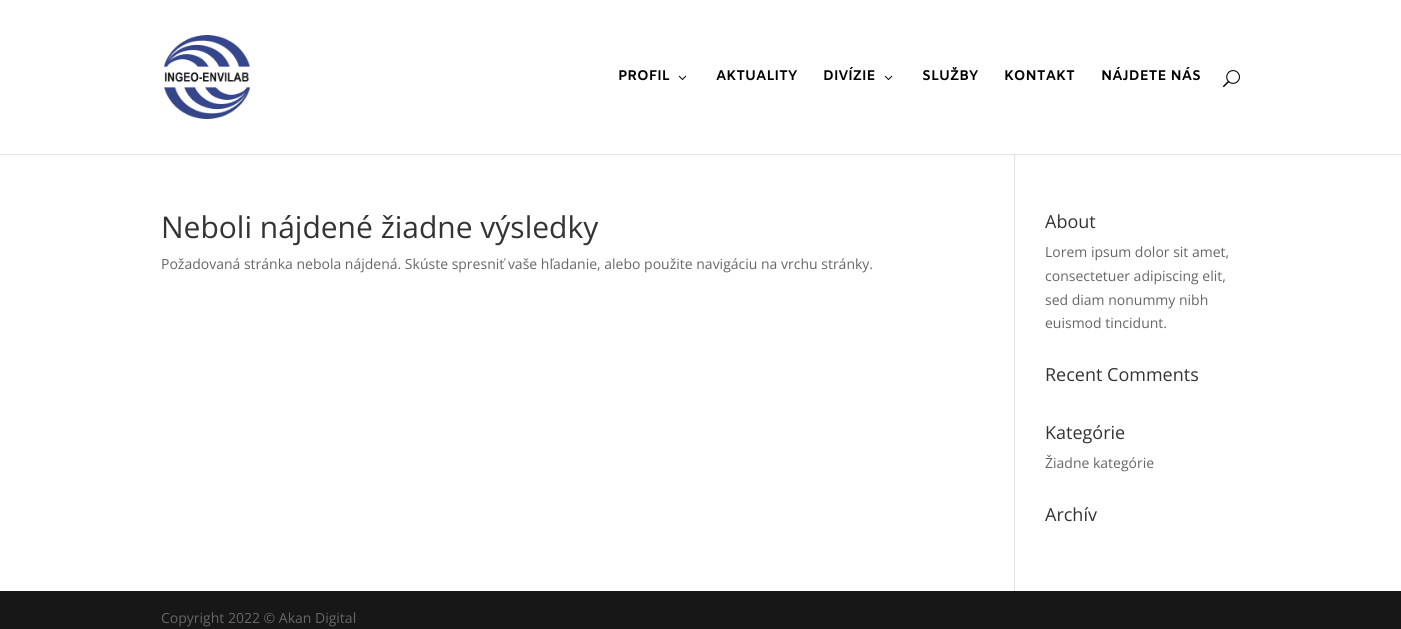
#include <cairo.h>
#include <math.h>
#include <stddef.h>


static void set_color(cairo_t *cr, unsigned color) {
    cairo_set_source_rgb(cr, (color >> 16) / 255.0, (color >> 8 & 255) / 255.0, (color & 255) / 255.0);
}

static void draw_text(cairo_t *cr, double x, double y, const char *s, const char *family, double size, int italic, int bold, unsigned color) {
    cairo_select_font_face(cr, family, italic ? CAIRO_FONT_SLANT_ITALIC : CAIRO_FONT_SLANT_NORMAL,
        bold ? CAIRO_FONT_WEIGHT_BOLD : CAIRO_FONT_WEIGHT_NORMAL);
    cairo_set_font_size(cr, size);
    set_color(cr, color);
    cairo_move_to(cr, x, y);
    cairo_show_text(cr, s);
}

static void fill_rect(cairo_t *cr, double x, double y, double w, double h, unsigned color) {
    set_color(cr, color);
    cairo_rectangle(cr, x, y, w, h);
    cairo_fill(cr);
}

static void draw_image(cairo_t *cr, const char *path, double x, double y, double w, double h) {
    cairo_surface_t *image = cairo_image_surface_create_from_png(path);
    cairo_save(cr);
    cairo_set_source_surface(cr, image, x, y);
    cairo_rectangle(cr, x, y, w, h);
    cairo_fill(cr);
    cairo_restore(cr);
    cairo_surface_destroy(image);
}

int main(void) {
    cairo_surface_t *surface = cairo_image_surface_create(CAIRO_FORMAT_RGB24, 1401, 629);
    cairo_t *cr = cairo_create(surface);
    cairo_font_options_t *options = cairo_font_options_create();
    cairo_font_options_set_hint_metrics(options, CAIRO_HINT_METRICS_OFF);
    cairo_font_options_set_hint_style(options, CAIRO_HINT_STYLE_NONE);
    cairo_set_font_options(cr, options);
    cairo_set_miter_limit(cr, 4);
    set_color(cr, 0xFFFFFF);
    cairo_paint(cr);
    fill_rect(cr, 0, 154, 1401, 1, 0xE6E6E6);
    draw_image(cr, "assets/img1.png", 164, 35, 86, 84);
    draw_text(cr, 618, 80, "PROFIL", "Amiko", 14, 0, 1, 0x000000);
    draw_image(cr, "assets/img2.png", 678, 75, 9, 5);
    draw_text(cr, 716, 80, "AKTUALITY", "Amiko", 14, 0, 1, 0x000000);
    draw_text(cr, 823, 80, "DIVÍZIE", "Amiko", 14, 0, 1, 0x000000);
    draw_image(cr, "assets/img2.png", 884, 75, 9, 5);
    draw_text(cr, 922, 80, "SLUŽBY", "Amiko", 14, 0, 1, 0x000000);
    draw_text(cr, 1004, 80, "KONTAKT", "Amiko", 14, 0, 1, 0x000000);
    draw_text(cr, 1101, 80, "NÁJDETE NÁS", "Amiko", 14, 0, 1, 0x000000);
    draw_image(cr, "assets/img3.png", 1223, 70, 17, 18);
    fill_rect(cr, 1014, 154, 1, 437, 0xE2E2E2);
    fill_rect(cr, 1014, 154, 1, 1, 0xCBCBCB);
    draw_text(cr, 161, 238, "Neboli nájdené žiadne výsledky", "Open Sans", 30, 0, 0, 0x333333);
    draw_text(cr, 161, 269, "Požadovaná stránka nebola nájdená. Skúste spresniť vaše hľadanie, alebo použite navigáciu na vrchu stránky.", "Open Sans", 14, 0, 0, 0x666666);
    draw_text(cr, 1045, 228, "About", "Open Sans", 18, 0, 0, 0x333333);
    draw_text(cr, 1045, 257, "Lorem ipsum dolor sit amet,", "Open Sans", 14, 0, 0, 0x666666);
    draw_text(cr, 1045, 281, "consectetuer adipiscing elit,", "Open Sans", 14, 0, 0, 0x666666);
    draw_text(cr, 1045, 305, "sed diam nonummy nibh", "Open Sans", 14, 0, 0, 0x666666);
    draw_text(cr, 1045, 328, "euismod tincidunt.", "Open Sans", 14, 0, 0, 0x666666);
    draw_text(cr, 1045, 381, "Recent Comments", "Open Sans", 18, 0, 0, 0x333333);
    draw_text(cr, 1045, 439, "Kategórie", "Open Sans", 18, 0, 0, 0x333333);
    draw_text(cr, 1045, 468, "Žiadne kategórie", "Open Sans", 14, 0, 0, 0x666666);
    draw_text(cr, 1045, 521, "Archív", "Open Sans", 18, 0, 0, 0x333333);
    fill_rect(cr, 0, 591, 1401, 38, 0x171717);
    draw_text(cr, 161, 623, "Copyright 2022 © Akan Digital", "Open Sans", 14, 0, 0, 0x666666);
    cairo_surface_write_to_png(surface, "output.png");
    cairo_font_options_destroy(options);
    cairo_destroy(cr);
    cairo_surface_destroy(surface);
    return 0;
}
